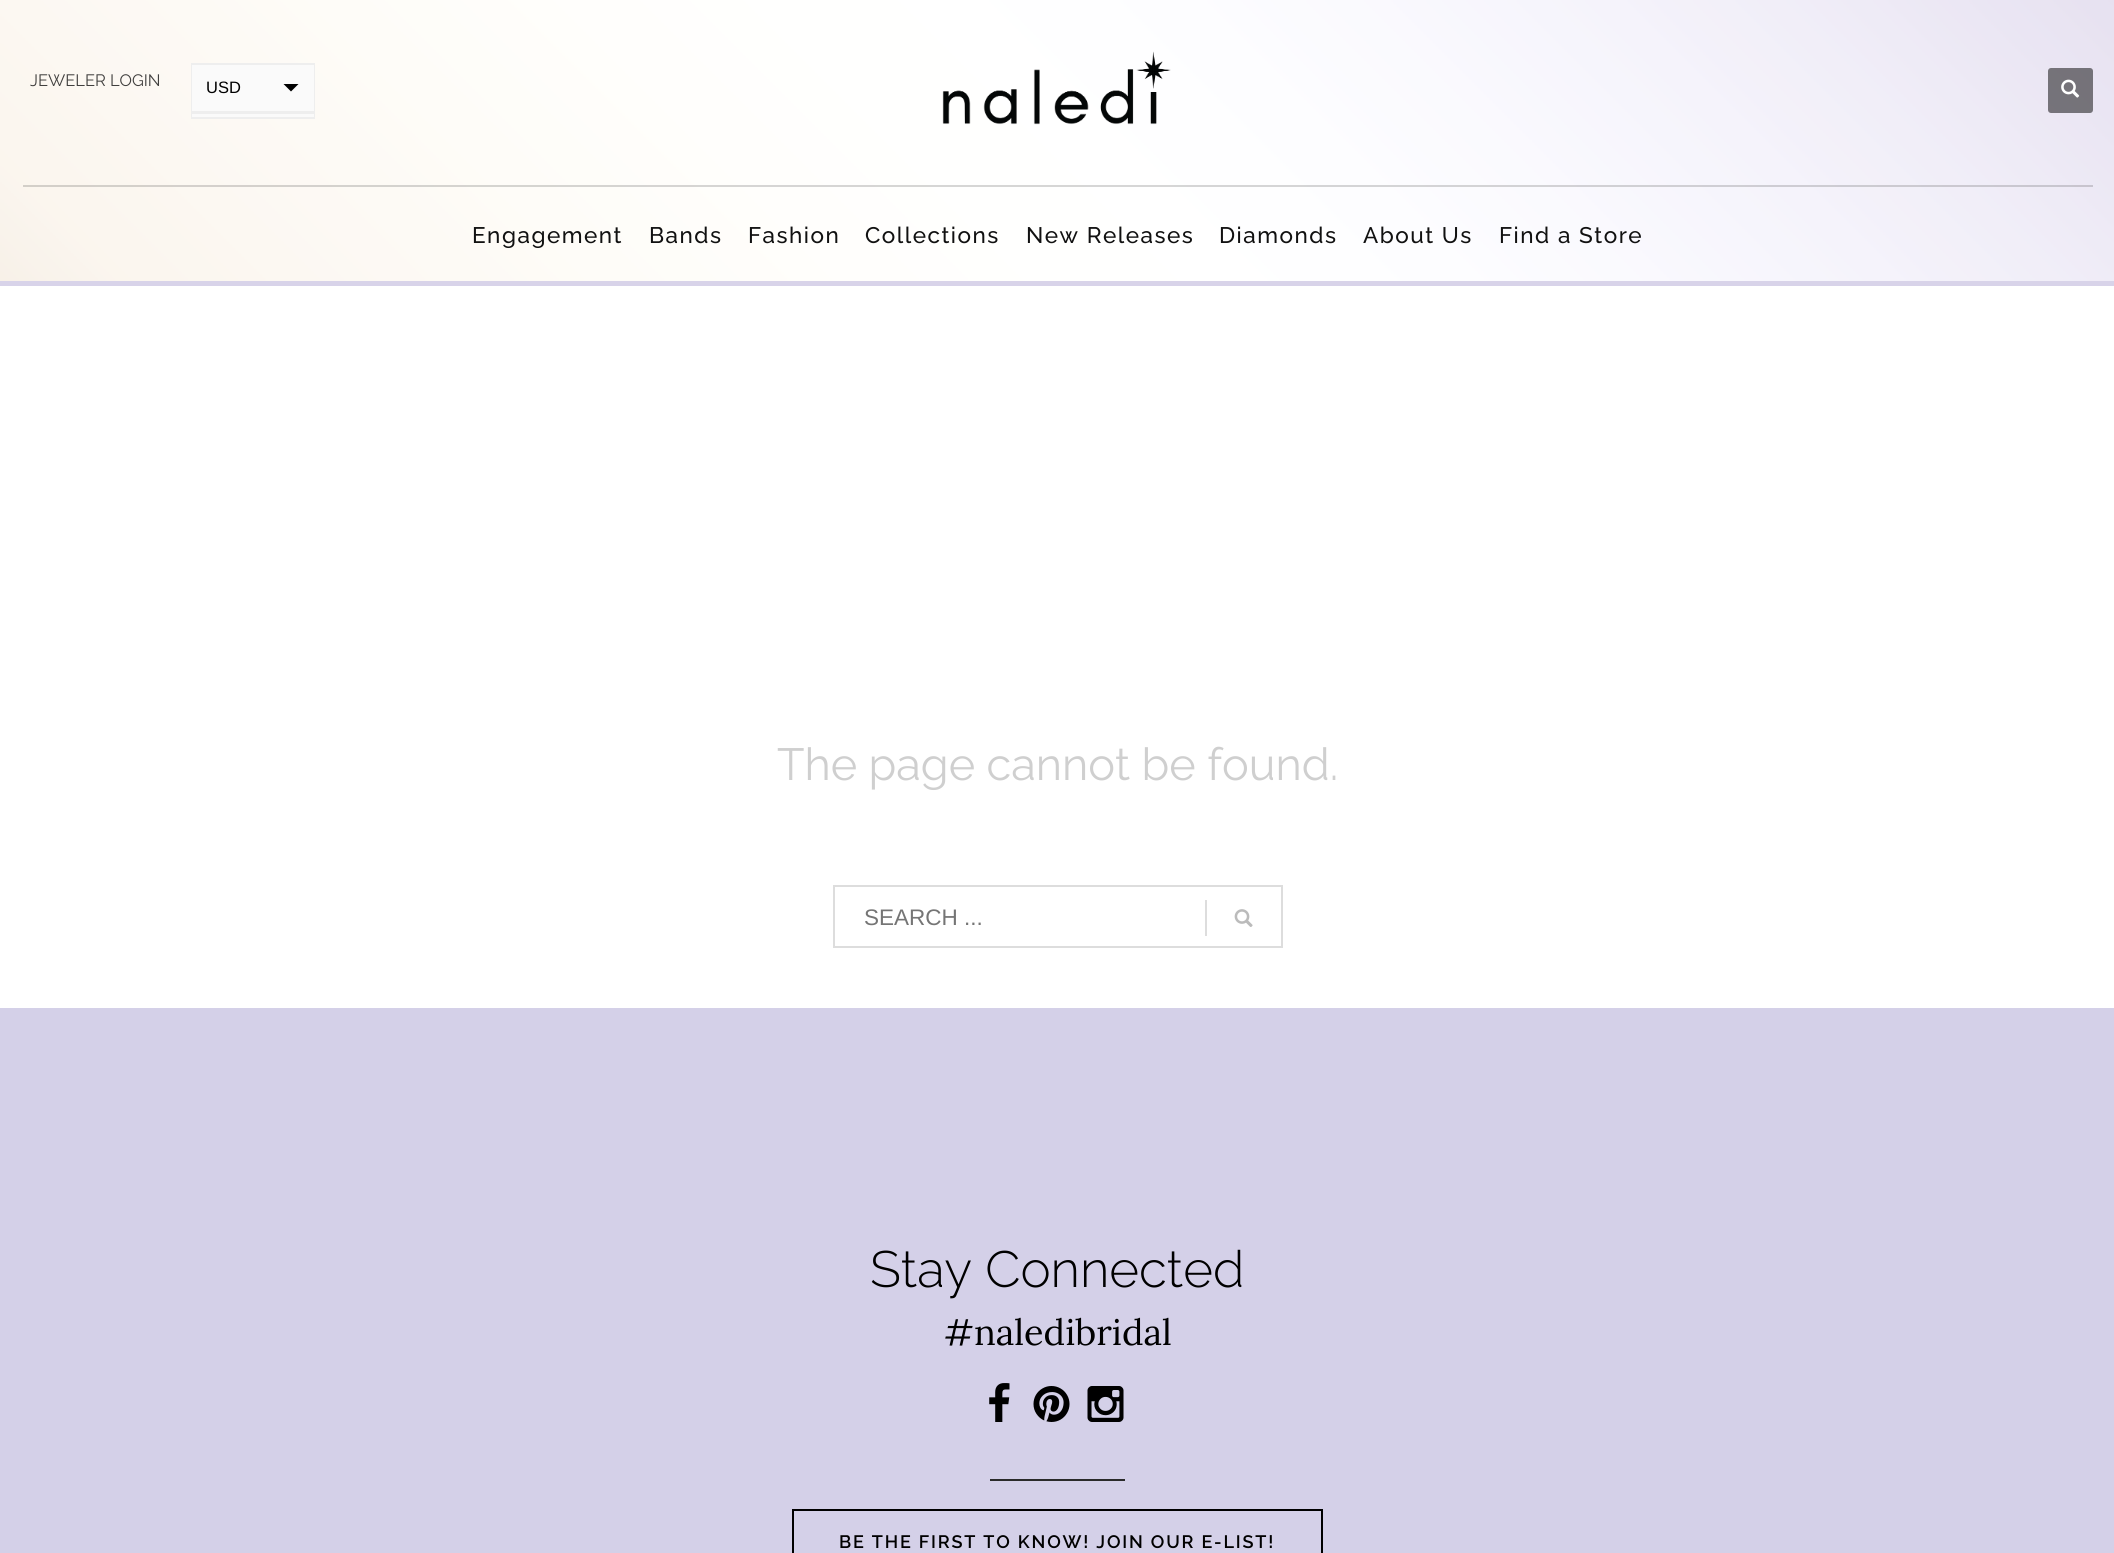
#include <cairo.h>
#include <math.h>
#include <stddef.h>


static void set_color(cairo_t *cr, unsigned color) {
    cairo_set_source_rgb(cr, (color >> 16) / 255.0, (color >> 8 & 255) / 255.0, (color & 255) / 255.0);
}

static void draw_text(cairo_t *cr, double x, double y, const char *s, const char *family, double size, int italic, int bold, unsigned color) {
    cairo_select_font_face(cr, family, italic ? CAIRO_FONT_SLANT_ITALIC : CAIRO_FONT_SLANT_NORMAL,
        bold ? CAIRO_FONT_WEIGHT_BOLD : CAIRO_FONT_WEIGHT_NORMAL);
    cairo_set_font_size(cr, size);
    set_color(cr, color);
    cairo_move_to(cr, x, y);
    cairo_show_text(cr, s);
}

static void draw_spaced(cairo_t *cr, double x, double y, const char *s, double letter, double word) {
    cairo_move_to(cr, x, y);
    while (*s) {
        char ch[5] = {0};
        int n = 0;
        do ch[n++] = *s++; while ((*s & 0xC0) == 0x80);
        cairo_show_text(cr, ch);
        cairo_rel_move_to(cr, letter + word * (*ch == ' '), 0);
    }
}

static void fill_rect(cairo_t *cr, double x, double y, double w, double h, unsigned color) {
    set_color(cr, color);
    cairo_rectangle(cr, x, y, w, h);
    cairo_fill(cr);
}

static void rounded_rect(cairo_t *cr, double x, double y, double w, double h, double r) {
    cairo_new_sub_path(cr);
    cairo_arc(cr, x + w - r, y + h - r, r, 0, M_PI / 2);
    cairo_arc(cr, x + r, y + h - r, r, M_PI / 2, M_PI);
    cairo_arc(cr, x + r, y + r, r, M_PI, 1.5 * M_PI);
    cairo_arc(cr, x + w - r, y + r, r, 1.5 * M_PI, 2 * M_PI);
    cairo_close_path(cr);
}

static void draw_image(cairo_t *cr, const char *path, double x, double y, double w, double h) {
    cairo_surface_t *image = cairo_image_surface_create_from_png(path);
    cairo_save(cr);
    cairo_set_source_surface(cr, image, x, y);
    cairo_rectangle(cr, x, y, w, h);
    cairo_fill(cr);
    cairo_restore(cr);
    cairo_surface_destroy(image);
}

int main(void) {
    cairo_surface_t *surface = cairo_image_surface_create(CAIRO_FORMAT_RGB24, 2114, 1553);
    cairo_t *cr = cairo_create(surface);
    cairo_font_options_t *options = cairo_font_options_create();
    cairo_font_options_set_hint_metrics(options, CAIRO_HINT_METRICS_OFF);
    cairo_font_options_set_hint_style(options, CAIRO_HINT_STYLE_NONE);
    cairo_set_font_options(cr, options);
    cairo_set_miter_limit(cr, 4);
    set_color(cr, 0xFFFFFF);
    cairo_paint(cr);
    draw_image(cr, "assets/img1.png", 0, 0, 2114, 281);
    fill_rect(cr, 0, 281, 2114, 5, 0xD8D3E9);
    draw_text(cr, 30, 86, "JEWELER LOGIN", "Raleway", 16.5, 0, 0, 0x403F3E);
    fill_rect(cr, 191, 63, 124, 56, 0xEEEEEE);
    fill_rect(cr, 192, 65, 122, 46, 0xFAFAFA);
    draw_text(cr, 206, 93, "USD", "Liberation Sans", 16.5, 0, 0, 0x000000);
    cairo_new_path(cr);
    cairo_move_to(cr, 283.5, 84);
    cairo_line_to(cr, 298.5, 84);
    cairo_line_to(cr, 291, 91.5);
    cairo_close_path(cr);
    cairo_fill(cr);
    fill_rect(cr, 192, 114, 122, 3, 0xFAFAFA);
    draw_image(cr, "assets/img2.png", 942, 51, 229, 74);
    cairo_set_source_rgba(cr, 0, 0, 0, 0.5);
    rounded_rect(cr, 2048, 68, 45, 45, 3);
    cairo_fill(cr);
    draw_image(cr, "assets/img3.png", 2061, 79, 19, 19);
    cairo_set_source_rgba(cr, 0.2, 0.2, 0.2, 0.2);
    cairo_rectangle(cr, 23, 185, 2070, 2);
    cairo_fill(cr);
    cairo_select_font_face(cr, "Raleway Medium", CAIRO_FONT_SLANT_NORMAL, CAIRO_FONT_WEIGHT_NORMAL);
    cairo_set_font_size(cr, 22.5);
    set_color(cr, 0x111111);
    draw_spaced(cr, 472, 243, "Engagement", 1.5, 0);
    draw_spaced(cr, 649, 243, "Bands", 1.5, 0);
    draw_spaced(cr, 748, 243, "Fashion", 1.5, 0);
    draw_spaced(cr, 865, 243, "Collections", 1.5, 0);
    draw_spaced(cr, 1026, 243, "New Releases", 1.5, 0);
    draw_spaced(cr, 1219, 243, "Diamonds", 1.5, 0);
    draw_spaced(cr, 1363, 243, "About Us", 1.5, 0);
    draw_spaced(cr, 1499, 243, "Find a Store", 1.5, 0);
    draw_text(cr, 777, 780, "The page cannot be found.", "Raleway", 45, 0, 0, 0xCFCFCF);
    cairo_rectangle(cr, 834, 886, 448, 61);
    set_color(cr, 0xDDDDDD);
    cairo_stroke(cr);
    draw_text(cr, 864, 925, "SEARCH ...", "Liberation Sans", 22.5, 0, 0, 0x757575);
    fill_rect(cr, 1205, 900, 2, 36, 0xDDDDDD);
    draw_image(cr, "assets/img4.png", 1234, 909, 19, 18);
    fill_rect(cr, 0, 1008, 2114, 545, 0xD4D0E8);
    draw_text(cr, 870, 1287, "Stay Connected", "Raleway Light", 51, 0, 0, 0x000000);
    draw_text(cr, 944, 1345, "#naledibridal", "Lora", 36, 0, 0, 0x000000);
    draw_image(cr, "assets/img5.png", 989, 1383, 21, 39);
    draw_image(cr, "assets/img6.png", 1033, 1386, 37, 36);
    draw_image(cr, "assets/img7.png", 1087, 1386, 37, 36);
    fill_rect(cr, 990, 1479, 135, 2, 0x2A2A2A);
    cairo_rectangle(cr, 793, 1510, 529, 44);
    set_color(cr, 0x000000);
    cairo_stroke(cr);
    cairo_select_font_face(cr, "Raleway SemiBold", CAIRO_FONT_SLANT_NORMAL, CAIRO_FONT_WEIGHT_NORMAL);
    cairo_set_font_size(cr, 18);
    draw_spaced(cr, 839, 1548, "BE THE FIRST TO KNOW! JOIN OUR E-LIST!", 1.8, 0);
    cairo_surface_write_to_png(surface, "output.png");
    cairo_font_options_destroy(options);
    cairo_destroy(cr);
    cairo_surface_destroy(surface);
    return 0;
}
